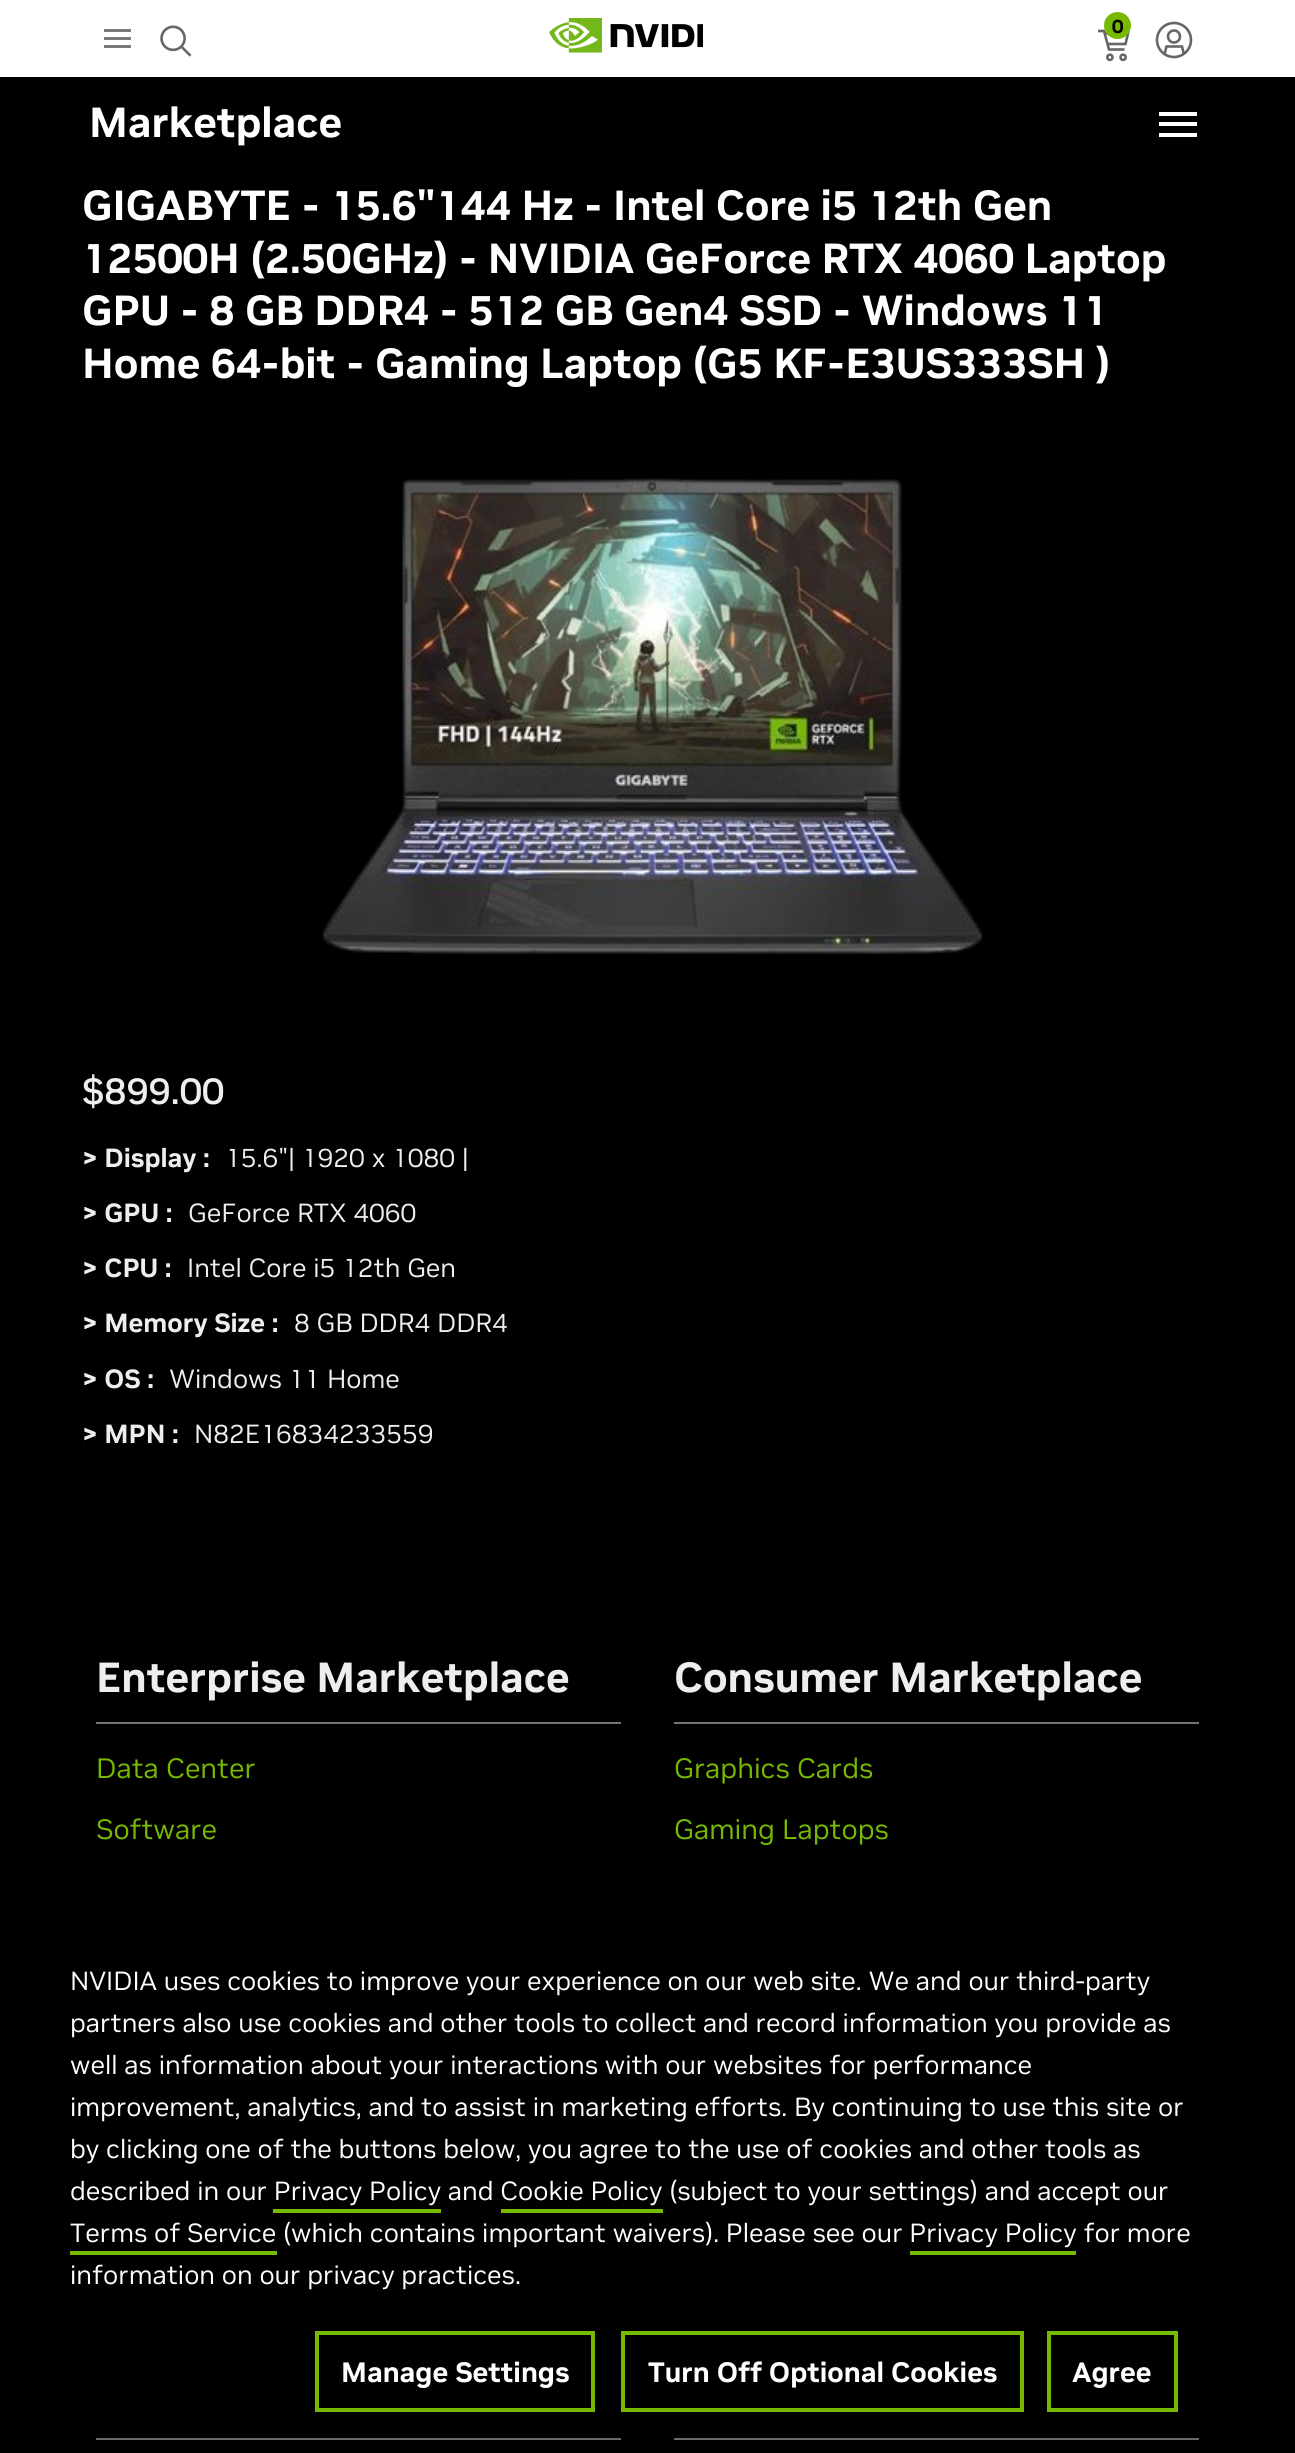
#include <cairo.h>
#include <math.h>
#include <stddef.h>


static void set_color(cairo_t *cr, unsigned color) {
    cairo_set_source_rgb(cr, (color >> 16) / 255.0, (color >> 8 & 255) / 255.0, (color & 255) / 255.0);
}

static void draw_text(cairo_t *cr, double x, double y, const char *s, const char *family, double size, int italic, int bold, unsigned color) {
    cairo_select_font_face(cr, family, italic ? CAIRO_FONT_SLANT_ITALIC : CAIRO_FONT_SLANT_NORMAL,
        bold ? CAIRO_FONT_WEIGHT_BOLD : CAIRO_FONT_WEIGHT_NORMAL);
    cairo_set_font_size(cr, size);
    set_color(cr, color);
    cairo_move_to(cr, x, y);
    cairo_show_text(cr, s);
}

static void fill_rect(cairo_t *cr, double x, double y, double w, double h, unsigned color) {
    set_color(cr, color);
    cairo_rectangle(cr, x, y, w, h);
    cairo_fill(cr);
}

static void rounded_rect(cairo_t *cr, double x, double y, double w, double h, double r) {
    cairo_new_sub_path(cr);
    cairo_arc(cr, x + w - r, y + h - r, r, 0, M_PI / 2);
    cairo_arc(cr, x + r, y + h - r, r, M_PI / 2, M_PI);
    cairo_arc(cr, x + r, y + r, r, M_PI, 1.5 * M_PI);
    cairo_arc(cr, x + w - r, y + r, r, 1.5 * M_PI, 2 * M_PI);
    cairo_close_path(cr);
}

static void draw_shadow(cairo_t *cr, double x, double y, double w, double h, double r, double blur, double alpha) {
    cairo_push_group_with_content(cr, CAIRO_CONTENT_ALPHA);
    cairo_set_operator(cr, CAIRO_OPERATOR_SOURCE);
    for (int i = 15; i >= -15 && fmin(w, h) + blur * i / 3 > 0; i -= 2) {
        double e = blur * i / 6;
        cairo_set_source_rgba(cr, 0, 0, 0, alpha * erfc((i - 1) / 8.5) / 2);
        rounded_rect(cr, x - e, y - e, w + 2 * e, h + 2 * e, fmax(0, fmin(r + e + blur * .6, fmin(w, h) / 2 + e)));
        cairo_fill(cr);
    }
    cairo_pattern_t *soft = cairo_pop_group(cr);
    cairo_mask(cr, soft);
    cairo_pattern_destroy(soft);
}

static void draw_image(cairo_t *cr, const char *path, double x, double y, double w, double h) {
    cairo_surface_t *image = cairo_image_surface_create_from_png(path);
    cairo_save(cr);
    cairo_set_source_surface(cr, image, x, y);
    cairo_rectangle(cr, x, y, w, h);
    cairo_fill(cr);
    cairo_restore(cr);
    cairo_surface_destroy(image);
}

int main(void) {
    cairo_surface_t *surface = cairo_image_surface_create(CAIRO_FORMAT_RGB24, 1295, 2453);
    cairo_t *cr = cairo_create(surface);
    cairo_font_options_t *options = cairo_font_options_create();
    cairo_font_options_set_hint_metrics(options, CAIRO_HINT_METRICS_OFF);
    cairo_font_options_set_hint_style(options, CAIRO_HINT_STYLE_NONE);
    cairo_set_font_options(cr, options);
    cairo_set_miter_limit(cr, 4);
    set_color(cr, 0x000000);
    cairo_paint(cr);
    fill_rect(cr, 0, 0, 1295, 77, 0xFFFFFF);
    fill_rect(cr, 104, 29, 27, 3, 0x7A7A7A);
    fill_rect(cr, 104, 37, 27, 3, 0x7A7A7A);
    fill_rect(cr, 104, 45, 27, 3, 0x7A7A7A);
    draw_image(cr, "assets/img1.png", 160, 25, 32, 32);
    draw_image(cr, "assets/img2.png", 549, 18, 154, 35);
    cairo_new_path(cr);
    cairo_move_to(cr, 1098, 31);
    cairo_line_to(cr, 1104, 31);
    cairo_line_to(cr, 1109, 49.5);
    cairo_line_to(cr, 1124.5, 49.5);
    set_color(cr, 0x666666);
    cairo_set_line_width(cr, 2.6);
    cairo_stroke(cr);
    cairo_new_path(cr);
    cairo_move_to(cr, 1105, 33.5);
    cairo_line_to(cr, 1128, 33.5);
    cairo_line_to(cr, 1125.5, 44);
    cairo_line_to(cr, 1107.5, 44);
    cairo_stroke(cr);
    set_color(cr, 0x76B900);
    cairo_arc(cr, 1117.5, 25.5, 13.5, 0, 2 * M_PI);
    cairo_fill(cr);
    draw_text(cr, 1112, 33, "0", "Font", 19, 0, 1, 0x000000);
    cairo_new_path(cr);
    cairo_arc(cr, 1109.9, 57.3, 2.6, 0, 2 * M_PI);
    set_color(cr, 0x666666);
    cairo_stroke(cr);
    cairo_arc(cr, 1123.1, 57.3, 2.6, 0, 2 * M_PI);
    cairo_stroke(cr);
    cairo_arc(cr, 1174, 40, 17, 0, 2 * M_PI);
    cairo_stroke(cr);
    cairo_arc(cr, 1174, 36.5, 6, 0, 2 * M_PI);
    cairo_stroke(cr);
    cairo_new_path(cr);
    cairo_move_to(cr, 1184, 54.5);
    cairo_line_to(cr, 1182, 46.5);
    cairo_line_to(cr, 1166.5, 46.5);
    cairo_line_to(cr, 1164.5, 54.5);
    cairo_stroke(cr);
    draw_text(cr, 89, 137, "Marketplace", "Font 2", 42, 0, 1, 0xFFFFFF);
    fill_rect(cr, 1159, 112, 38, 4, 0xFFFFFF);
    fill_rect(cr, 1159, 122, 38, 4, 0xFFFFFF);
    fill_rect(cr, 1159, 133, 38, 4, 0xFFFFFF);
    draw_text(cr, 82, 220, "GIGABYTE - 15.6\"144 Hz - Intel Core i5 12th Gen", "Font 2", 42, 0, 1, 0xFFFFFF);
    draw_text(cr, 82, 273, "12500H (2.50GHz) - NVIDIA GeForce RTX 4060 Laptop", "Font 2", 42, 0, 1, 0xFFFFFF);
    draw_text(cr, 82, 325, "GPU - 8 GB DDR4 - 512 GB Gen4 SSD - Windows 11", "Font 2", 42, 0, 1, 0xFFFFFF);
    draw_text(cr, 82, 378, "Home 64-bit - Gaming Laptop (G5 KF-E3US333SH )", "Font 2", 42, 0, 1, 0xFFFFFF);
    draw_image(cr, "assets/img3.png", 322, 478, 661, 477);
    draw_text(cr, 82, 1104, "$899.00", "Font Medium", 37, 0, 0, 0xEEEEEE);
    draw_text(cr, 82, 1167, "> Display :", "Font", 26.25, 0, 1, 0xEEEEEE);
    draw_text(cr, 225, 1167, "15.6\"| 1920 x 1080 |", "Font", 26.25, 0, 0, 0xEEEEEE);
    draw_text(cr, 82, 1222, "> GPU :", "Font", 26.25, 0, 1, 0xEEEEEE);
    draw_text(cr, 188, 1222, "GeForce RTX 4060", "Font", 26.25, 0, 0, 0xEEEEEE);
    draw_text(cr, 82, 1277, "> CPU :", "Font", 26.25, 0, 1, 0xEEEEEE);
    draw_text(cr, 187, 1277, "Intel Core i5 12th Gen", "Font", 26.25, 0, 0, 0xEEEEEE);
    draw_text(cr, 82, 1332, "> Memory Size :", "Font", 26.25, 0, 1, 0xEEEEEE);
    draw_text(cr, 294, 1332, "8 GB DDR4 DDR4", "Font", 26.25, 0, 0, 0xEEEEEE);
    draw_text(cr, 82, 1388, "> OS :", "Font", 26.25, 0, 1, 0xEEEEEE);
    draw_text(cr, 169, 1388, "Windows 11 Home", "Font", 26.25, 0, 0, 0xEEEEEE);
    draw_text(cr, 82, 1443, "> MPN :", "Font", 26.25, 0, 1, 0xEEEEEE);
    draw_text(cr, 194, 1443, "N82E16834233559", "Font", 26.25, 0, 0, 0xEEEEEE);
    fill_rect(cr, 96, 1722, 525, 2, 0x747474);
    draw_text(cr, 96, 1692, "Enterprise Marketplace", "Font", 42, 0, 1, 0xEEEEEE);
    draw_text(cr, 96, 1778, "Data Center", "Font", 28, 0, 0, 0x76B900);
    draw_text(cr, 96, 1839, "Software", "Font", 28, 0, 0, 0x76B900);
    fill_rect(cr, 674, 1722, 525, 2, 0x747474);
    draw_text(cr, 674, 1692, "Consumer Marketplace", "Font", 42, 0, 1, 0xEEEEEE);
    draw_text(cr, 674, 1778, "Graphics Cards", "Font", 28, 0, 0, 0x76B900);
    draw_text(cr, 674, 1839, "Gaming Laptops", "Font", 28, 0, 0, 0x76B900);
    fill_rect(cr, 96, 2438, 525, 2, 0x747474);
    fill_rect(cr, 674, 2438, 525, 2, 0x747474);
    cairo_save(cr);
    cairo_set_fill_rule(cr, CAIRO_FILL_RULE_EVEN_ODD);
    cairo_new_path(cr);
    cairo_move_to(cr, 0, 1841);
    cairo_line_to(cr, 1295, 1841);
    cairo_line_to(cr, 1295, 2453);
    cairo_line_to(cr, 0, 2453);
    cairo_close_path(cr);
    cairo_move_to(cr, 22, 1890);
    cairo_line_to(cr, 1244, 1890);
    cairo_curve_to(cr, 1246, 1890, 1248, 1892, 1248, 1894);
    cairo_line_to(cr, 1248, 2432);
    cairo_curve_to(cr, 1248, 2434, 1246, 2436, 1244, 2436);
    cairo_line_to(cr, 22, 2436);
    cairo_curve_to(cr, 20, 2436, 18, 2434, 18, 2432);
    cairo_line_to(cr, 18, 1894);
    cairo_curve_to(cr, 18, 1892, 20, 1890, 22, 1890);
    cairo_close_path(cr);
    cairo_clip(cr);
    set_color(cr, 0x000000);
    draw_shadow(cr, 18, 1890, 1230, 546, 4, 16, 0.2);
    cairo_restore(cr);
    draw_text(cr, 70, 1990, "NVIDIA uses cookies to improve your experience on our web site. We and our third-party", "Font", 26.25, 0, 0, 0xFFFFFF);
    draw_text(cr, 70, 2032, "partners also use cookies and other tools to collect and record information you provide as", "Font", 26.25, 0, 0, 0xFFFFFF);
    draw_text(cr, 70, 2074, "well as information about your interactions with our websites for performance", "Font", 26.25, 0, 0, 0xFFFFFF);
    draw_text(cr, 70, 2116, "improvement, analytics, and to assist in marketing efforts. By continuing to use this site or", "Font", 26.25, 0, 0, 0xFFFFFF);
    draw_text(cr, 70, 2158, "by clicking one of the buttons below, you agree to the use of cookies and other tools as", "Font", 26.25, 0, 0, 0xFFFFFF);
    draw_text(cr, 70, 2200, "described in our Privacy Policy and Cookie Policy (subject to your settings) and accept our", "Font", 26.25, 0, 0, 0xFFFFFF);
    fill_rect(cr, 273, 2209, 168, 4, 0x76B900);
    fill_rect(cr, 501, 2209, 162, 4, 0x76B900);
    draw_text(cr, 70, 2242, "Terms of Service (which contains important waivers). Please see our Privacy Policy for more", "Font", 26.25, 0, 0, 0xFFFFFF);
    fill_rect(cr, 70, 2251, 207, 4, 0x76B900);
    fill_rect(cr, 910, 2251, 166, 4, 0x76B900);
    draw_text(cr, 70, 2284, "information on our privacy practices.", "Font", 26.25, 0, 0, 0xFFFFFF);
    cairo_rectangle(cr, 317, 2333, 276, 77);
    set_color(cr, 0x76B900);
    cairo_set_line_width(cr, 4);
    cairo_stroke(cr);
    draw_text(cr, 341, 2382, "Manage Settings", "Font", 28, 0, 1, 0xFFFFFF);
    cairo_rectangle(cr, 623, 2333, 399, 77);
    set_color(cr, 0x76B900);
    cairo_stroke(cr);
    draw_text(cr, 648, 2382, "Turn Off Optional Cookies", "Font", 28, 0, 1, 0xFFFFFF);
    cairo_rectangle(cr, 1049, 2333, 127, 77);
    set_color(cr, 0x76B900);
    cairo_stroke(cr);
    draw_text(cr, 1072, 2382, "Agree", "Font", 28, 0, 1, 0xFFFFFF);
    cairo_surface_write_to_png(surface, "output.png");
    cairo_font_options_destroy(options);
    cairo_destroy(cr);
    cairo_surface_destroy(surface);
    return 0;
}
